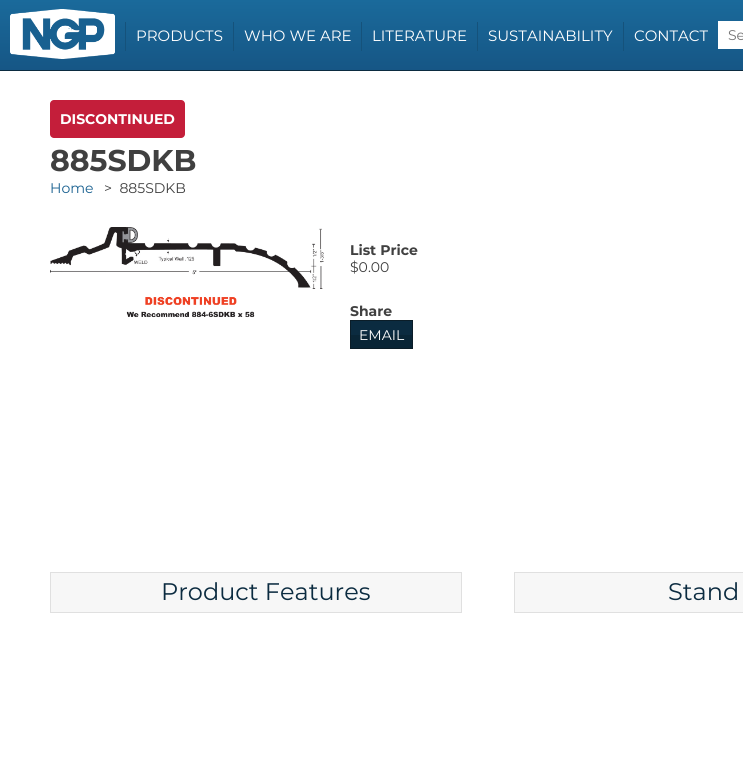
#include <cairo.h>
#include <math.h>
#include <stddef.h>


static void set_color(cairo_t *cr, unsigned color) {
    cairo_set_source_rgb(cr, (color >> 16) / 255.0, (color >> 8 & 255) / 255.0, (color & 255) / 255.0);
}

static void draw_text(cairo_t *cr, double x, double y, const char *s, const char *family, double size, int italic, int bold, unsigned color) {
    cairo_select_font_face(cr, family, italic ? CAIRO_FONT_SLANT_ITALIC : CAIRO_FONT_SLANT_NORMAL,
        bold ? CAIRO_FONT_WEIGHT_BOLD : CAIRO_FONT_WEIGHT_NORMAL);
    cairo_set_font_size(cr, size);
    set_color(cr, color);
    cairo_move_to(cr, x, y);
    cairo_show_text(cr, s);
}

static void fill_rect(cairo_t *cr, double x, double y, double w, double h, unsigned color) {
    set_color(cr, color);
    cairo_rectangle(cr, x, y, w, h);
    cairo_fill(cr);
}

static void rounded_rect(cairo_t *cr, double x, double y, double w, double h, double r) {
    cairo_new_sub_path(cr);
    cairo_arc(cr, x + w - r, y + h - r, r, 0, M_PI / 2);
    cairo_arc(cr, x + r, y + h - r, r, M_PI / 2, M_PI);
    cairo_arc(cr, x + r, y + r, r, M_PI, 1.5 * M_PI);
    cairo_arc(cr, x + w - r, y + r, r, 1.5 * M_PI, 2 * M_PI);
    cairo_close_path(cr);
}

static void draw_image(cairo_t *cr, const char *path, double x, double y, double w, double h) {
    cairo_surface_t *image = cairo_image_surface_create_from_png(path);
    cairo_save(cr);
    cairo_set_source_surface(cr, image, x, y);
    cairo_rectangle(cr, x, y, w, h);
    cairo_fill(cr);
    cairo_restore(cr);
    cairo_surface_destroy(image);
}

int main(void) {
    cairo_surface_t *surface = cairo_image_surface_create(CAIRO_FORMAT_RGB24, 743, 777);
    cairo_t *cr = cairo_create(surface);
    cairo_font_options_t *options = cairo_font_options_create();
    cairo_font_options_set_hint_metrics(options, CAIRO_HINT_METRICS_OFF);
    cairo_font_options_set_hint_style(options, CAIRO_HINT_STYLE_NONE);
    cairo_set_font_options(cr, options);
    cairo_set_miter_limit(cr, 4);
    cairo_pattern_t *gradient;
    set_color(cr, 0xFFFFFF);
    cairo_paint(cr);
    gradient = cairo_pattern_create_linear(372, 0, 372, 70);
    cairo_pattern_add_color_stop_rgba(gradient, 0, 0.102, 0.416, 0.608, 1);
    cairo_pattern_add_color_stop_rgba(gradient, 1, 0.086, 0.337, 0.522, 1);
    cairo_set_source(cr, gradient);
    cairo_pattern_destroy(gradient);
    cairo_rectangle(cr, 0, 0, 743, 70);
    cairo_fill(cr);
    fill_rect(cr, 0, 70, 743, 1, 0x0B2B40);
    draw_image(cr, "assets/img1.png", 10, 9, 105, 50);
    fill_rect(cr, 125, 22, 1, 29, 0x15527B);
    draw_text(cr, 136, 41, "PRODUCTS", "Montserrat", 15, 0, 0, 0xFFFFFF);
    fill_rect(cr, 233, 22, 1, 29, 0x15527B);
    draw_text(cr, 244, 41, "WHO WE ARE", "Montserrat", 15, 0, 0, 0xFFFFFF);
    fill_rect(cr, 361, 22, 1, 29, 0x15527B);
    draw_text(cr, 372, 41, "LITERATURE", "Montserrat", 15, 0, 0, 0xFFFFFF);
    fill_rect(cr, 477, 22, 1, 29, 0x15527B);
    draw_text(cr, 488, 41, "SUSTAINABILITY", "Montserrat", 15, 0, 0, 0xFFFFFF);
    fill_rect(cr, 623, 22, 1, 29, 0x15527B);
    draw_text(cr, 634, 41, "CONTACT", "Montserrat", 15, 0, 0, 0xFFFFFF);
    fill_rect(cr, 718, 21, 25, 28, 0xFFFFFF);
    draw_text(cr, 728, 40, "Se", "Montserrat", 14, 0, 0, 0x757575);
    set_color(cr, 0xC41E3A);
    rounded_rect(cr, 50, 100, 135, 38, 4);
    cairo_fill(cr);
    draw_text(cr, 60, 124, "DISCONTINUED", "Montserrat", 14, 0, 1, 0xFFFFFF);
    draw_text(cr, 50, 171, "885SDKB", "Montserrat", 30, 0, 1, 0x404040);
    draw_text(cr, 50, 193, "Home", "Montserrat", 14, 0, 0, 0x186090);
    draw_text(cr, 104, 193, ">  885SDKB", "Montserrat", 14, 0, 0, 0x404040);
    draw_image(cr, "assets/img2.png", 50, 227, 274, 91);
    draw_text(cr, 350, 255, "List Price", "Montserrat", 14, 0, 1, 0x404040);
    draw_text(cr, 350, 272, "$0.00", "Montserrat", 14, 0, 0, 0x404040);
    draw_text(cr, 350, 316, "Share", "Montserrat", 14, 0, 1, 0x404040);
    fill_rect(cr, 351, 321, 61, 14, 0x0B2B40);
    fill_rect(cr, 351, 335, 61, 13, 0x092536);
    cairo_rectangle(cr, 350.5, 320.5, 62, 28);
    set_color(cr, 0x0B1D28);
    cairo_set_line_width(cr, 1);
    cairo_stroke(cr);
    draw_text(cr, 359, 340, "EMAIL", "Montserrat", 14, 0, 0, 0xFFFFFF);
    set_color(cr, 0xF7F7F7);
    cairo_rectangle(cr, 50.5, 572.5, 411, 40);
    cairo_fill_preserve(cr);
    set_color(cr, 0xE0E0E0);
    cairo_stroke(cr);
    draw_text(cr, 161, 600, "Product Features", "Montserrat", 24, 0, 0, 0x0B2B40);
    set_color(cr, 0xF7F7F7);
    cairo_rectangle(cr, 514.5, 572.5, 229, 40);
    cairo_fill_preserve(cr);
    set_color(cr, 0xE0E0E0);
    cairo_stroke(cr);
    draw_text(cr, 668, 600, "Stand", "Montserrat", 24, 0, 0, 0x0B2B40);
    cairo_surface_write_to_png(surface, "output.png");
    cairo_font_options_destroy(options);
    cairo_destroy(cr);
    cairo_surface_destroy(surface);
    return 0;
}
